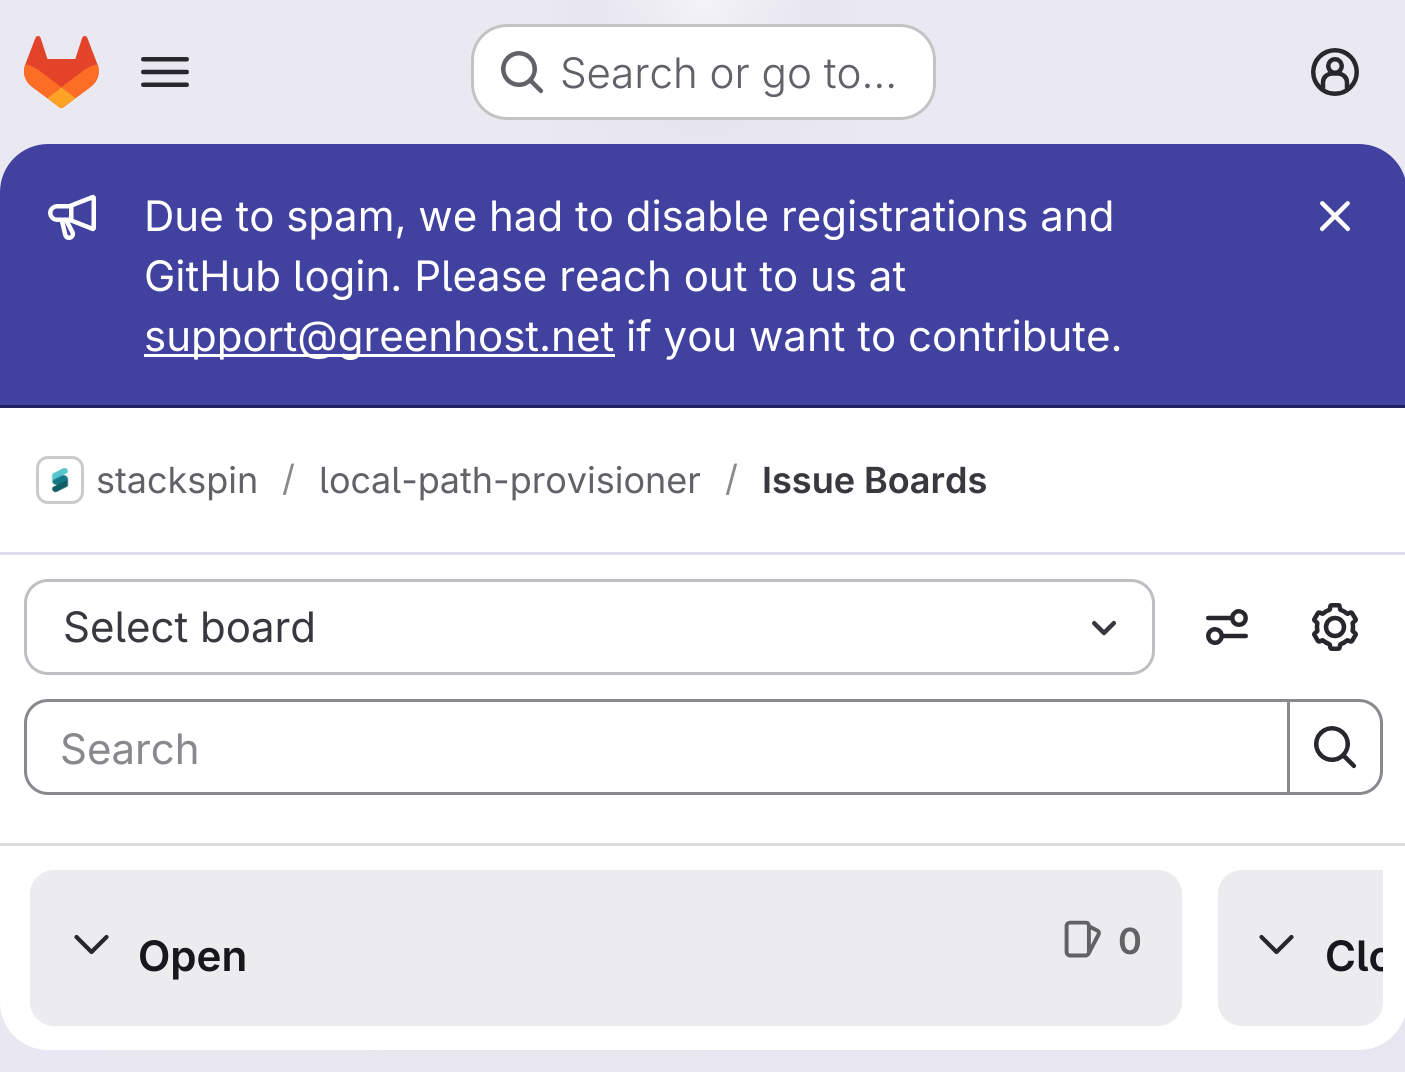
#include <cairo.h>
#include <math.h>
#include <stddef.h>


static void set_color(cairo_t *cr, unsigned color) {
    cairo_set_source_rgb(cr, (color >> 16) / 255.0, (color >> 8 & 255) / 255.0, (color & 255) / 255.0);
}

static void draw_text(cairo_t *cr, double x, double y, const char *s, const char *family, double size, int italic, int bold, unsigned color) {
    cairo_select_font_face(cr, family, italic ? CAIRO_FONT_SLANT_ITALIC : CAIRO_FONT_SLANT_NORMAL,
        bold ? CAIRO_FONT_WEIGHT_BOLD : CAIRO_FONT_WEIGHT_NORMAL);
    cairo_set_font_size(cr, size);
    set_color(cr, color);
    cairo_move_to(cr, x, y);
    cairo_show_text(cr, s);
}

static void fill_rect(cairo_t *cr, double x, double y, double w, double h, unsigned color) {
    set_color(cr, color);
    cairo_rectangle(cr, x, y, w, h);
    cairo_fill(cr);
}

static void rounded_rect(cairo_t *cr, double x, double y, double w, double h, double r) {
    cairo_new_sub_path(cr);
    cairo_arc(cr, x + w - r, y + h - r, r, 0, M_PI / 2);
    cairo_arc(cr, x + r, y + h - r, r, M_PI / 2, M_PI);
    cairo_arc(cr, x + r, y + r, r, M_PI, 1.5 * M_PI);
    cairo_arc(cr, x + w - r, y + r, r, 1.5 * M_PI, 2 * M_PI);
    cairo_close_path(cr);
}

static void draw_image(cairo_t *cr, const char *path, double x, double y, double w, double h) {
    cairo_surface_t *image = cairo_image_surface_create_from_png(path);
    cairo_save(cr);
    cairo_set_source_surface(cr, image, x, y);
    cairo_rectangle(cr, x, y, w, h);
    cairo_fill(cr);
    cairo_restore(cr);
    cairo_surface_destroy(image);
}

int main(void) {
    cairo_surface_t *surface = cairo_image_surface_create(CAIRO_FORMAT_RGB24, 1405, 1072);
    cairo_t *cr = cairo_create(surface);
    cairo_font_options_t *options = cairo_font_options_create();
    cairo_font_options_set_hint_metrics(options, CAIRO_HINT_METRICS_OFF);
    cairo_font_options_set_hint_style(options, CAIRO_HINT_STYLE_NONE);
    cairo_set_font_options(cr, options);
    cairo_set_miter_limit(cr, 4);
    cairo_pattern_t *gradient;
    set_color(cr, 0xFFFFFF);
    cairo_paint(cr);
    gradient = cairo_pattern_create_linear(817, 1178, 590, -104);
    cairo_pattern_add_color_stop_rgba(gradient, 0, 0.91, 0.902, 0.941, 1);
    cairo_pattern_add_color_stop_rgba(gradient, 0.7, 0.918, 0.914, 0.949, 1);
    cairo_set_source(cr, gradient);
    cairo_pattern_destroy(gradient);
    cairo_rectangle(cr, 0, 0, 1405, 1072);
    cairo_fill(cr);
    gradient = cairo_pattern_create_radial(0, 0, 0, 0, 0, 1);
    cairo_pattern_set_matrix(gradient, &(cairo_matrix_t){1.0 / 704, 0, 0, 1.0 / 1074, -1.0 * 704 / 704, -1.0 * 0 / 1074});
    cairo_pattern_add_color_stop_rgba(gradient, 0, 0.894, 0.886, 0.929, 1);
    cairo_pattern_add_color_stop_rgba(gradient, 0.3, 0.894, 0.886, 0.929, 0);
    cairo_set_source(cr, gradient);
    cairo_pattern_destroy(gradient);
    cairo_rectangle(cr, 552, 0, 304, 144);
    cairo_fill(cr);
    gradient = cairo_pattern_create_radial(0, 0, 0, 0, 0, 1);
    cairo_pattern_set_matrix(gradient, &(cairo_matrix_t){1.0 / 704, 0, 0, 1.0 / 1074, -1.0 * 704 / 704, -1.0 * 0 / 1074});
    cairo_pattern_add_color_stop_rgba(gradient, 0, 0.894, 0.886, 0.925, 1);
    cairo_pattern_add_color_stop_rgba(gradient, 0.21, 0.894, 0.886, 0.925, 0);
    cairo_set_source(cr, gradient);
    cairo_pattern_destroy(gradient);
    cairo_rectangle(cr, 642, 3, 122, 91);
    cairo_fill(cr);
    gradient = cairo_pattern_create_radial(704, 0, 0, 704, 0, 1284);
    cairo_pattern_add_color_stop_rgba(gradient, 0, 1, 1, 1, 0.6);
    cairo_pattern_add_color_stop_rgba(gradient, 0.09, 1, 1, 1, 0);
    cairo_set_source(cr, gradient);
    cairo_pattern_destroy(gradient);
    cairo_rectangle(cr, 607, 0, 194, 24);
    cairo_fill(cr);
    draw_image(cr, "assets/img1.png", 24, 36, 75, 72);
    draw_image(cr, "assets/img2.png", 141, 57, 48, 30);
    set_color(cr, 0xFFFFFF);
    rounded_rect(cr, 471, 24, 465, 96, 36);
    cairo_fill(cr);
    rounded_rect(cr, 472.5, 25.5, 462, 93, 34.5);
    cairo_set_source_rgba(cr, 0.02, 0.02, 0.024, 0.24);
    cairo_set_line_width(cr, 3);
    cairo_stroke(cr);
    draw_image(cr, "assets/img3.png", 501, 51, 43, 43);
    draw_text(cr, 560, 88, "Search or go to…", "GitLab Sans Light", 42, 0, 0, 0x626168);
    draw_image(cr, "assets/img4.png", 1311, 48, 48, 48);
    set_color(cr, 0xFFFFFF);
    rounded_rect(cr, 0, 144, 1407, 906, 48);
    cairo_fill(cr);
    set_color(cr, 0x41419F);
    cairo_new_path(cr);
    cairo_move_to(cr, 48, 144);
    cairo_line_to(cr, 1359, 144);
    cairo_curve_to(cr, 1385.5, 144, 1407, 165.5, 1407, 192);
    cairo_line_to(cr, 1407, 408);
    cairo_line_to(cr, 0, 408);
    cairo_line_to(cr, 0, 192);
    cairo_curve_to(cr, 0, 165.5, 21.5, 144, 48, 144);
    cairo_close_path(cr);
    cairo_fill(cr);
    fill_rect(cr, 0, 405, 1405, 3, 0x222261);
    draw_image(cr, "assets/img5.png", 48, 194, 48, 46);
    draw_text(cr, 144, 231, "Due to spam, we had to disable registrations and", "GitLab Sans", 42, 0, 0, 0xFFFFFF);
    draw_text(cr, 144, 291, "GitHub login. Please reach out to us at", "GitLab Sans", 42, 0, 0, 0xFFFFFF);
    fill_rect(cr, 144, 354, 471, 3, 0xFFFFFF);
    draw_text(cr, 144, 351, "support@greenhost.net if you want to contribute.", "GitLab Sans", 42, 0, 0, 0xFFFFFF);
    draw_image(cr, "assets/img6.png", 1319, 201, 32, 31);
    fill_rect(cr, 0, 552, 1405, 3, 0xE1DFEC);
    rounded_rect(cr, 37.5, 457.5, 45, 45, 10.5);
    set_color(cr, 0xDCDCDE);
    cairo_stroke(cr);
    draw_image(cr, "assets/img7.png", 51, 467, 18, 26);
    rounded_rect(cr, 37.5, 457.5, 45, 45, 10.5);
    cairo_set_source_rgba(cr, 0.02, 0.02, 0.024, 0.08);
    cairo_stroke(cr);
    draw_text(cr, 96, 493, "stackspin", "GitLab Sans", 36, 0, 0, 0x626168);
    draw_text(cr, 282, 491, "/", "GitLab Sans", 36, 0, 0, 0x89888D);
    draw_text(cr, 319, 493, "local-path-provisioner", "GitLab Sans", 36, 0, 0, 0x626168);
    draw_text(cr, 725, 491, "/", "GitLab Sans", 36, 0, 0, 0x89888D);
    draw_text(cr, 762, 493, "Issue Boards", "GitLab Sans SemiBold", 36, 0, 0, 0x3A383F);
    fill_rect(cr, 0, 843, 1405, 3, 0xDCDCDE);
    rounded_rect(cr, 25.5, 580.5, 1128, 93, 22.5);
    set_color(cr, 0xBFBFC3);
    cairo_stroke(cr);
    draw_text(cr, 63, 642, "Select board", "GitLab Sans", 42, 0, 0, 0x3A383F);
    draw_image(cr, "assets/img8.png", 1091, 620, 26, 16);
    draw_image(cr, "assets/img9.png", 1206, 609, 42, 36);
    draw_image(cr, "assets/img10.png", 1312, 603, 46, 48);
    cairo_new_path(cr);
    cairo_move_to(cr, 48, 700.5);
    cairo_line_to(cr, 1288.5, 700.5);
    cairo_line_to(cr, 1288.5, 793.5);
    cairo_line_to(cr, 48, 793.5);
    cairo_curve_to(cr, 35.5, 793.5, 25.5, 783.5, 25.5, 771);
    cairo_line_to(cr, 25.5, 723);
    cairo_curve_to(cr, 25.5, 710.5, 35.5, 700.5, 48, 700.5);
    cairo_close_path(cr);
    set_color(cr, 0x89888D);
    cairo_stroke(cr);
    draw_text(cr, 60, 764, "Search", "GitLab Sans", 42, 0, 0, 0x89888D);
    set_color(cr, 0xFFFFFF);
    cairo_new_path(cr);
    cairo_move_to(cr, 1288.5, 700.5);
    cairo_line_to(cr, 1359, 700.5);
    cairo_curve_to(cr, 1371.5, 700.5, 1381.5, 710.5, 1381.5, 723);
    cairo_line_to(cr, 1381.5, 771);
    cairo_curve_to(cr, 1381.5, 783.5, 1371.5, 793.5, 1359, 793.5);
    cairo_line_to(cr, 1288.5, 793.5);
    cairo_close_path(cr);
    cairo_fill_preserve(cr);
    set_color(cr, 0x89888D);
    cairo_stroke(cr);
    draw_image(cr, "assets/img11.png", 1314, 726, 43, 43);
    set_color(cr, 0xECECEF);
    rounded_rect(cr, 30, 870, 1152, 156, 24);
    cairo_fill(cr);
    cairo_new_path(cr);
    cairo_move_to(cr, 76.5, 937);
    cairo_line_to(cr, 91.5, 952);
    cairo_line_to(cr, 106.5, 937);
    set_color(cr, 0x28272D);
    cairo_set_line_width(cr, 4.2);
    cairo_set_line_cap(cr, CAIRO_LINE_CAP_ROUND);
    cairo_set_line_join(cr, CAIRO_LINE_JOIN_ROUND);
    cairo_stroke(cr);
    draw_text(cr, 138, 971, "Open", "GitLab Sans SemiBold", 42, 0, 0, 0x18171D);
    draw_image(cr, "assets/img12.png", 1064, 920, 37, 38);
    draw_text(cr, 1118, 954, "0", "GitLab Sans SemiBold", 36, 0, 0, 0x626168);
    set_color(cr, 0xECECEF);
    cairo_new_path(cr);
    cairo_move_to(cr, 1242, 870);
    cairo_line_to(cr, 1383, 870);
    cairo_line_to(cr, 1383, 1002);
    cairo_curve_to(cr, 1383, 1015.5, 1372.5, 1026, 1359, 1026);
    cairo_line_to(cr, 1242, 1026);
    cairo_curve_to(cr, 1228.5, 1026, 1218, 1015.5, 1218, 1002);
    cairo_line_to(cr, 1218, 894);
    cairo_curve_to(cr, 1218, 880.5, 1228.5, 870, 1242, 870);
    cairo_close_path(cr);
    cairo_fill(cr);
    cairo_new_path(cr);
    cairo_move_to(cr, 1261.5, 937);
    cairo_line_to(cr, 1276.5, 952);
    cairo_line_to(cr, 1291.5, 937);
    set_color(cr, 0x28272D);
    cairo_stroke(cr);
    cairo_save(cr);
    cairo_new_path(cr);
    cairo_move_to(cr, 24, 870);
    cairo_line_to(cr, 1383, 870);
    cairo_line_to(cr, 1383, 1002);
    cairo_curve_to(cr, 1383, 1015.5, 1372.5, 1026, 1359, 1026);
    cairo_line_to(cr, 48, 1026);
    cairo_curve_to(cr, 34.5, 1026, 24, 1015.5, 24, 1002);
    cairo_close_path(cr);
    cairo_clip(cr);
    draw_text(cr, 1325, 971, "Clo", "GitLab Sans SemiBold", 42, 0, 0, 0x18171D);
    cairo_restore(cr);
    cairo_surface_write_to_png(surface, "output.png");
    cairo_font_options_destroy(options);
    cairo_destroy(cr);
    cairo_surface_destroy(surface);
    return 0;
}
